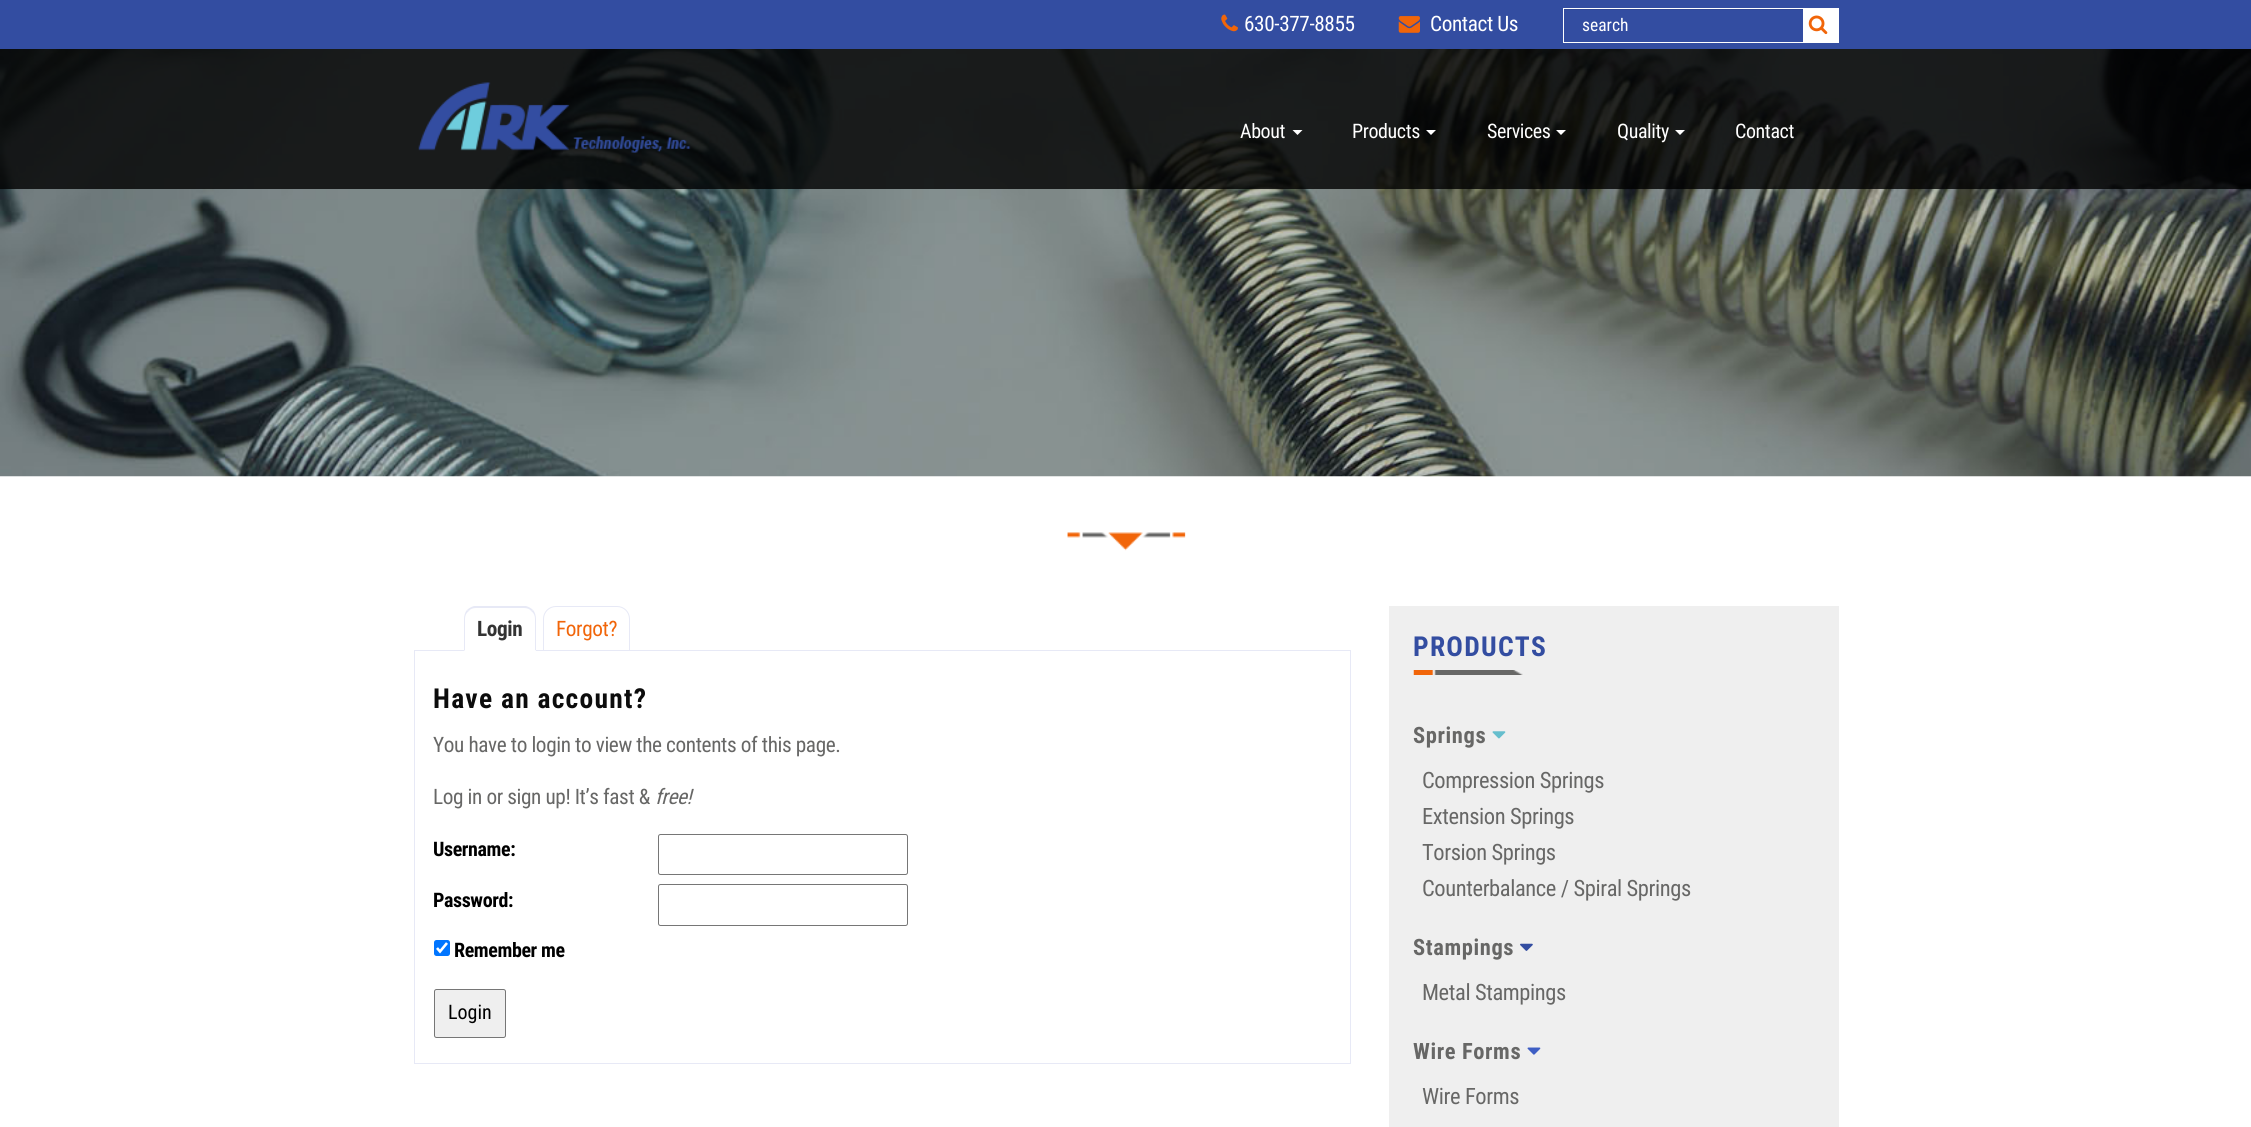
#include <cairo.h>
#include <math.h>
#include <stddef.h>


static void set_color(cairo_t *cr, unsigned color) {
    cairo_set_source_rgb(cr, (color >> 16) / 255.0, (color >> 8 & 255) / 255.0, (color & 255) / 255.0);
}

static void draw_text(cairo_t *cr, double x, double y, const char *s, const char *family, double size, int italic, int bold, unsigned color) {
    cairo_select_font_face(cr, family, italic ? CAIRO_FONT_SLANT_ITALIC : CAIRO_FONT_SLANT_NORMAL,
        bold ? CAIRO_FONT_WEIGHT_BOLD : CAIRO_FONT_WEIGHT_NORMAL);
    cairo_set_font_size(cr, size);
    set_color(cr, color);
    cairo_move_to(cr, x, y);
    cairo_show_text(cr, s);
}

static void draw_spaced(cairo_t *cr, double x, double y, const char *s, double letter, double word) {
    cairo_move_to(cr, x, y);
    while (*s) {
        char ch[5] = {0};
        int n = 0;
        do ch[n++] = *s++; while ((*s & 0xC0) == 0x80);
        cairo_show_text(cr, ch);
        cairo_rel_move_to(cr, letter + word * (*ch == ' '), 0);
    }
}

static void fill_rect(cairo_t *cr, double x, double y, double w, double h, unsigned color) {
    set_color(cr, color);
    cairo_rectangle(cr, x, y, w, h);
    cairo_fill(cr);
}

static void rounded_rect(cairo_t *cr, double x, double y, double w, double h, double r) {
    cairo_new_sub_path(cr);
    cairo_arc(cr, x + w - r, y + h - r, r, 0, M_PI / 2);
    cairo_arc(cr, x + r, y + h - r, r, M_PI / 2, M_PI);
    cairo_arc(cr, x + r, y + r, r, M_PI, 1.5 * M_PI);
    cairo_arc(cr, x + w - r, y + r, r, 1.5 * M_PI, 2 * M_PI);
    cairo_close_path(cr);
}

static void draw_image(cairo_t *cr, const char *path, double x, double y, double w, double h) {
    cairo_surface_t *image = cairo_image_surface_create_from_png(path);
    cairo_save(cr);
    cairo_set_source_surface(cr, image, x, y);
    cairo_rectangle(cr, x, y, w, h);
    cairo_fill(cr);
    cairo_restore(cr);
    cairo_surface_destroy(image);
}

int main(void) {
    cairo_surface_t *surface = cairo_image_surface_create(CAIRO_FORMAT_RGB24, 2251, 1127);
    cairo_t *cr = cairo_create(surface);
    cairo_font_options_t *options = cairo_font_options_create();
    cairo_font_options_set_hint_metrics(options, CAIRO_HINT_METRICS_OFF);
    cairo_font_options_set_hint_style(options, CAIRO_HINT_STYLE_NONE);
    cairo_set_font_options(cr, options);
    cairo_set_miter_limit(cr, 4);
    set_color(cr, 0xFFFFFF);
    cairo_paint(cr);
    draw_image(cr, "assets/img1.png", 0, 49, 2251, 428);
    fill_rect(cr, 0, 0, 2251, 49, 0x334DA1);
    draw_image(cr, "assets/img2.png", 1221, 14, 17, 18);
    cairo_select_font_face(cr, "Roboto Condensed", CAIRO_FONT_SLANT_NORMAL, CAIRO_FONT_WEIGHT_NORMAL);
    cairo_set_font_size(cr, 21.25);
    set_color(cr, 0xFFFFFF);
    draw_spaced(cr, 1244, 31, "630-377-8855", -0.4, 0);
    draw_image(cr, "assets/img3.png", 1398, 16, 22, 17);
    draw_spaced(cr, 1430, 31, "Contact Us", -0.4, 0);
    fill_rect(cr, 1564, 9, 239, 1, 0x2F4795);
    cairo_rectangle(cr, 1563.5, 8.5, 240, 34);
    set_color(cr, 0xFFFFFF);
    cairo_set_line_width(cr, 1);
    cairo_stroke(cr);
    draw_text(cr, 1582, 31, "search", "Roboto Condensed", 17.5, 0, 0, 0xFFFFFF);
    fill_rect(cr, 1804, 8, 35, 35, 0xFFFFFF);
    draw_image(cr, "assets/img4.png", 1808, 15, 20, 20);
    cairo_set_source_rgba(cr, 0, 0, 0, 0.8);
    cairo_rectangle(cr, 0, 49, 2251, 140);
    cairo_fill(cr);
    draw_image(cr, "assets/img5.png", 418, 82, 273, 71);
    cairo_set_font_size(cr, 20);
    set_color(cr, 0xFFFFFF);
    draw_spaced(cr, 1240, 138, "About", -0.4, 0);
    cairo_new_path(cr);
    cairo_move_to(cr, 1292.5, 130);
    cairo_line_to(cr, 1302.5, 130);
    cairo_line_to(cr, 1297.5, 135);
    cairo_close_path(cr);
    cairo_fill(cr);
    draw_spaced(cr, 1352, 138, "Products", -0.4, 0);
    cairo_new_path(cr);
    cairo_move_to(cr, 1426, 130);
    cairo_line_to(cr, 1436, 130);
    cairo_line_to(cr, 1431, 135);
    cairo_close_path(cr);
    cairo_fill(cr);
    draw_spaced(cr, 1487, 138, "Services", -0.4, 0);
    cairo_new_path(cr);
    cairo_move_to(cr, 1556, 130);
    cairo_line_to(cr, 1566, 130);
    cairo_line_to(cr, 1561, 135);
    cairo_close_path(cr);
    cairo_fill(cr);
    draw_spaced(cr, 1617, 138, "Quality", -0.4, 0);
    cairo_new_path(cr);
    cairo_move_to(cr, 1675, 130);
    cairo_line_to(cr, 1685, 130);
    cairo_line_to(cr, 1680, 135);
    cairo_close_path(cr);
    cairo_fill(cr);
    draw_spaced(cr, 1735, 138, "Contact", -0.4, 0);
    draw_image(cr, "assets/img6.png", 1067, 532, 119, 19);
    cairo_rectangle(cr, 414.5, 650.5, 936, 413);
    set_color(cr, 0xE7E9F6);
    cairo_stroke(cr);
    set_color(cr, 0xFFFFFF);
    cairo_new_path(cr);
    cairo_move_to(cr, 477, 606);
    cairo_line_to(cr, 523, 606);
    cairo_curve_to(cr, 530, 606, 536, 612, 536, 619);
    cairo_line_to(cr, 536, 651);
    cairo_line_to(cr, 464, 651);
    cairo_line_to(cr, 464, 619);
    cairo_curve_to(cr, 464, 612, 470, 606, 477, 606);
    cairo_close_path(cr);
    cairo_fill(cr);
    set_color(cr, 0xE7E9F6);
    cairo_new_path(cr);
    cairo_move_to(cr, 476, 608);
    cairo_curve_to(cr, 473, 608, 470, 609, 469, 611);
    cairo_line_to(cr, 467, 610);
    cairo_curve_to(cr, 469, 608, 471, 607, 474, 606);
    cairo_line_to(cr, 526, 606);
    cairo_curve_to(cr, 529, 607, 531, 608, 533, 610);
    cairo_line_to(cr, 531, 611);
    cairo_curve_to(cr, 530, 609, 527, 608, 524, 608);
    cairo_close_path(cr);
    cairo_fill(cr);
    cairo_new_path(cr);
    cairo_move_to(cr, 533, 610);
    cairo_curve_to(cr, 535, 612, 536, 616, 536, 619);
    cairo_line_to(cr, 536, 651);
    cairo_line_to(cr, 535, 650);
    cairo_line_to(cr, 535, 619);
    cairo_curve_to(cr, 535, 616, 534, 613, 531, 611);
    cairo_close_path(cr);
    cairo_fill(cr);
    set_color(cr, 0xFFFFFF);
    cairo_new_path(cr);
    cairo_move_to(cr, 536, 651);
    cairo_line_to(cr, 535, 650);
    cairo_line_to(cr, 465, 650);
    cairo_line_to(cr, 464, 651);
    cairo_close_path(cr);
    cairo_fill(cr);
    set_color(cr, 0xE7E9F6);
    cairo_new_path(cr);
    cairo_move_to(cr, 464, 651);
    cairo_line_to(cr, 465, 650);
    cairo_line_to(cr, 465, 619);
    cairo_curve_to(cr, 465, 616, 466, 613, 469, 611);
    cairo_line_to(cr, 467, 610);
    cairo_curve_to(cr, 465, 612, 464, 616, 464, 619);
    cairo_close_path(cr);
    cairo_fill(cr);
    cairo_select_font_face(cr, "Roboto Condensed", CAIRO_FONT_SLANT_NORMAL, CAIRO_FONT_WEIGHT_BOLD);
    cairo_set_font_size(cr, 21.25);
    set_color(cr, 0x333333);
    draw_spaced(cr, 477, 636, "Login", -0.4, 0);
    set_color(cr, 0xFFFFFF);
    cairo_new_path(cr);
    cairo_move_to(cr, 556, 606.5);
    cairo_line_to(cr, 617, 606.5);
    cairo_curve_to(cr, 624, 606.5, 629.5, 612, 629.5, 619);
    cairo_line_to(cr, 629.5, 650.5);
    cairo_line_to(cr, 543.5, 650.5);
    cairo_line_to(cr, 543.5, 619);
    cairo_curve_to(cr, 543.5, 612, 549, 606.5, 556, 606.5);
    cairo_close_path(cr);
    cairo_fill_preserve(cr);
    set_color(cr, 0xE7E9F6);
    cairo_stroke(cr);
    cairo_select_font_face(cr, "Roboto Condensed", CAIRO_FONT_SLANT_NORMAL, CAIRO_FONT_WEIGHT_NORMAL);
    set_color(cr, 0xF16509);
    draw_spaced(cr, 556, 636, "Forgot?", -0.4, 0);
    cairo_select_font_face(cr, "Roboto Condensed", CAIRO_FONT_SLANT_NORMAL, CAIRO_FONT_WEIGHT_BOLD);
    cairo_set_font_size(cr, 27.5);
    set_color(cr, 0x0C0C0C);
    draw_spaced(cr, 433, 708, "Have an account?", 1.25, 0);
    cairo_select_font_face(cr, "Roboto Condensed", CAIRO_FONT_SLANT_NORMAL, CAIRO_FONT_WEIGHT_NORMAL);
    cairo_set_font_size(cr, 21.25);
    set_color(cr, 0x676766);
    draw_spaced(cr, 433, 752, "You have to login to view the contents of this page.", -0.4, 0);
    draw_spaced(cr, 433, 804, "Log in or sign up! It’s fast &", -0.4, 0);
    cairo_select_font_face(cr, "Roboto Condensed", CAIRO_FONT_SLANT_ITALIC, CAIRO_FONT_WEIGHT_NORMAL);
    draw_spaced(cr, 655, 804, "free!", -0.4, 0);
    cairo_select_font_face(cr, "Roboto Condensed", CAIRO_FONT_SLANT_NORMAL, CAIRO_FONT_WEIGHT_BOLD);
    cairo_set_font_size(cr, 20);
    set_color(cr, 0x000000);
    draw_spaced(cr, 433, 856, "Username:", -0.4, 0);
    rounded_rect(cr, 658.5, 834.5, 249, 40, 2);
    set_color(cr, 0x767676);
    cairo_stroke(cr);
    set_color(cr, 0x000000);
    draw_spaced(cr, 433, 907, "Password:", -0.4, 0);
    rounded_rect(cr, 658.5, 884.5, 249, 41, 2);
    set_color(cr, 0x767676);
    cairo_stroke(cr);
    set_color(cr, 0x0075FF);
    rounded_rect(cr, 434, 940, 16, 16, 2.5);
    cairo_fill(cr);
    cairo_new_path(cr);
    cairo_move_to(cr, 437, 948);
    cairo_line_to(cr, 440, 951.5);
    cairo_line_to(cr, 447, 943);
    set_color(cr, 0xFFFFFF);
    cairo_set_line_width(cr, 2.6);
    cairo_stroke(cr);
    set_color(cr, 0x000000);
    draw_spaced(cr, 454, 957, "Remember me", -0.4, 0);
    set_color(cr, 0xEFEFEF);
    rounded_rect(cr, 434.5, 989.5, 71, 48, 2);
    cairo_fill_preserve(cr);
    set_color(cr, 0x767676);
    cairo_set_line_width(cr, 1);
    cairo_stroke(cr);
    draw_text(cr, 448, 1019, "Login", "Roboto Condensed", 20, 0, 0, 0x000000);
    fill_rect(cr, 1389, 606, 450, 521, 0xEFEFEF);
    cairo_select_font_face(cr, "Roboto Condensed", CAIRO_FONT_SLANT_NORMAL, CAIRO_FONT_WEIGHT_BOLD);
    cairo_set_font_size(cr, 27.5);
    set_color(cr, 0x334DA1);
    draw_spaced(cr, 1413, 656, "PRODUCTS", 1.25, 0);
    draw_image(cr, "assets/img7.png", 1413, 670, 110, 5);
    cairo_set_font_size(cr, 22.5);
    set_color(cr, 0x676766);
    draw_spaced(cr, 1413, 743, "Springs", 0.6, 0);
    draw_image(cr, "assets/img8.png", 1492, 731, 14, 8);
    cairo_select_font_face(cr, "Roboto Condensed", CAIRO_FONT_SLANT_NORMAL, CAIRO_FONT_WEIGHT_NORMAL);
    draw_spaced(cr, 1422, 788, "Compression Springs", -0.4, 0);
    draw_spaced(cr, 1422, 824, "Extension Springs", -0.4, 0);
    draw_spaced(cr, 1422, 860, "Torsion Springs", -0.4, 0);
    draw_spaced(cr, 1422, 896, "Counterbalance / Spiral Springs", -0.4, 0);
    cairo_select_font_face(cr, "Roboto Condensed", CAIRO_FONT_SLANT_NORMAL, CAIRO_FONT_WEIGHT_BOLD);
    draw_spaced(cr, 1413, 955, "Stampings", 0.6, 0);
    draw_image(cr, "assets/img9.png", 1520, 943, 13, 8);
    cairo_select_font_face(cr, "Roboto Condensed", CAIRO_FONT_SLANT_NORMAL, CAIRO_FONT_WEIGHT_NORMAL);
    draw_spaced(cr, 1422, 1000, "Metal Stampings", -0.4, 0);
    cairo_select_font_face(cr, "Roboto Condensed", CAIRO_FONT_SLANT_NORMAL, CAIRO_FONT_WEIGHT_BOLD);
    draw_spaced(cr, 1413, 1059, "Wire Forms", 0.6, 0);
    draw_image(cr, "assets/img10.png", 1527, 1047, 14, 8);
    cairo_select_font_face(cr, "Roboto Condensed", CAIRO_FONT_SLANT_NORMAL, CAIRO_FONT_WEIGHT_NORMAL);
    draw_spaced(cr, 1422, 1104, "Wire Forms", -0.4, 0);
    cairo_surface_write_to_png(surface, "output.png");
    cairo_font_options_destroy(options);
    cairo_destroy(cr);
    cairo_surface_destroy(surface);
    return 0;
}
